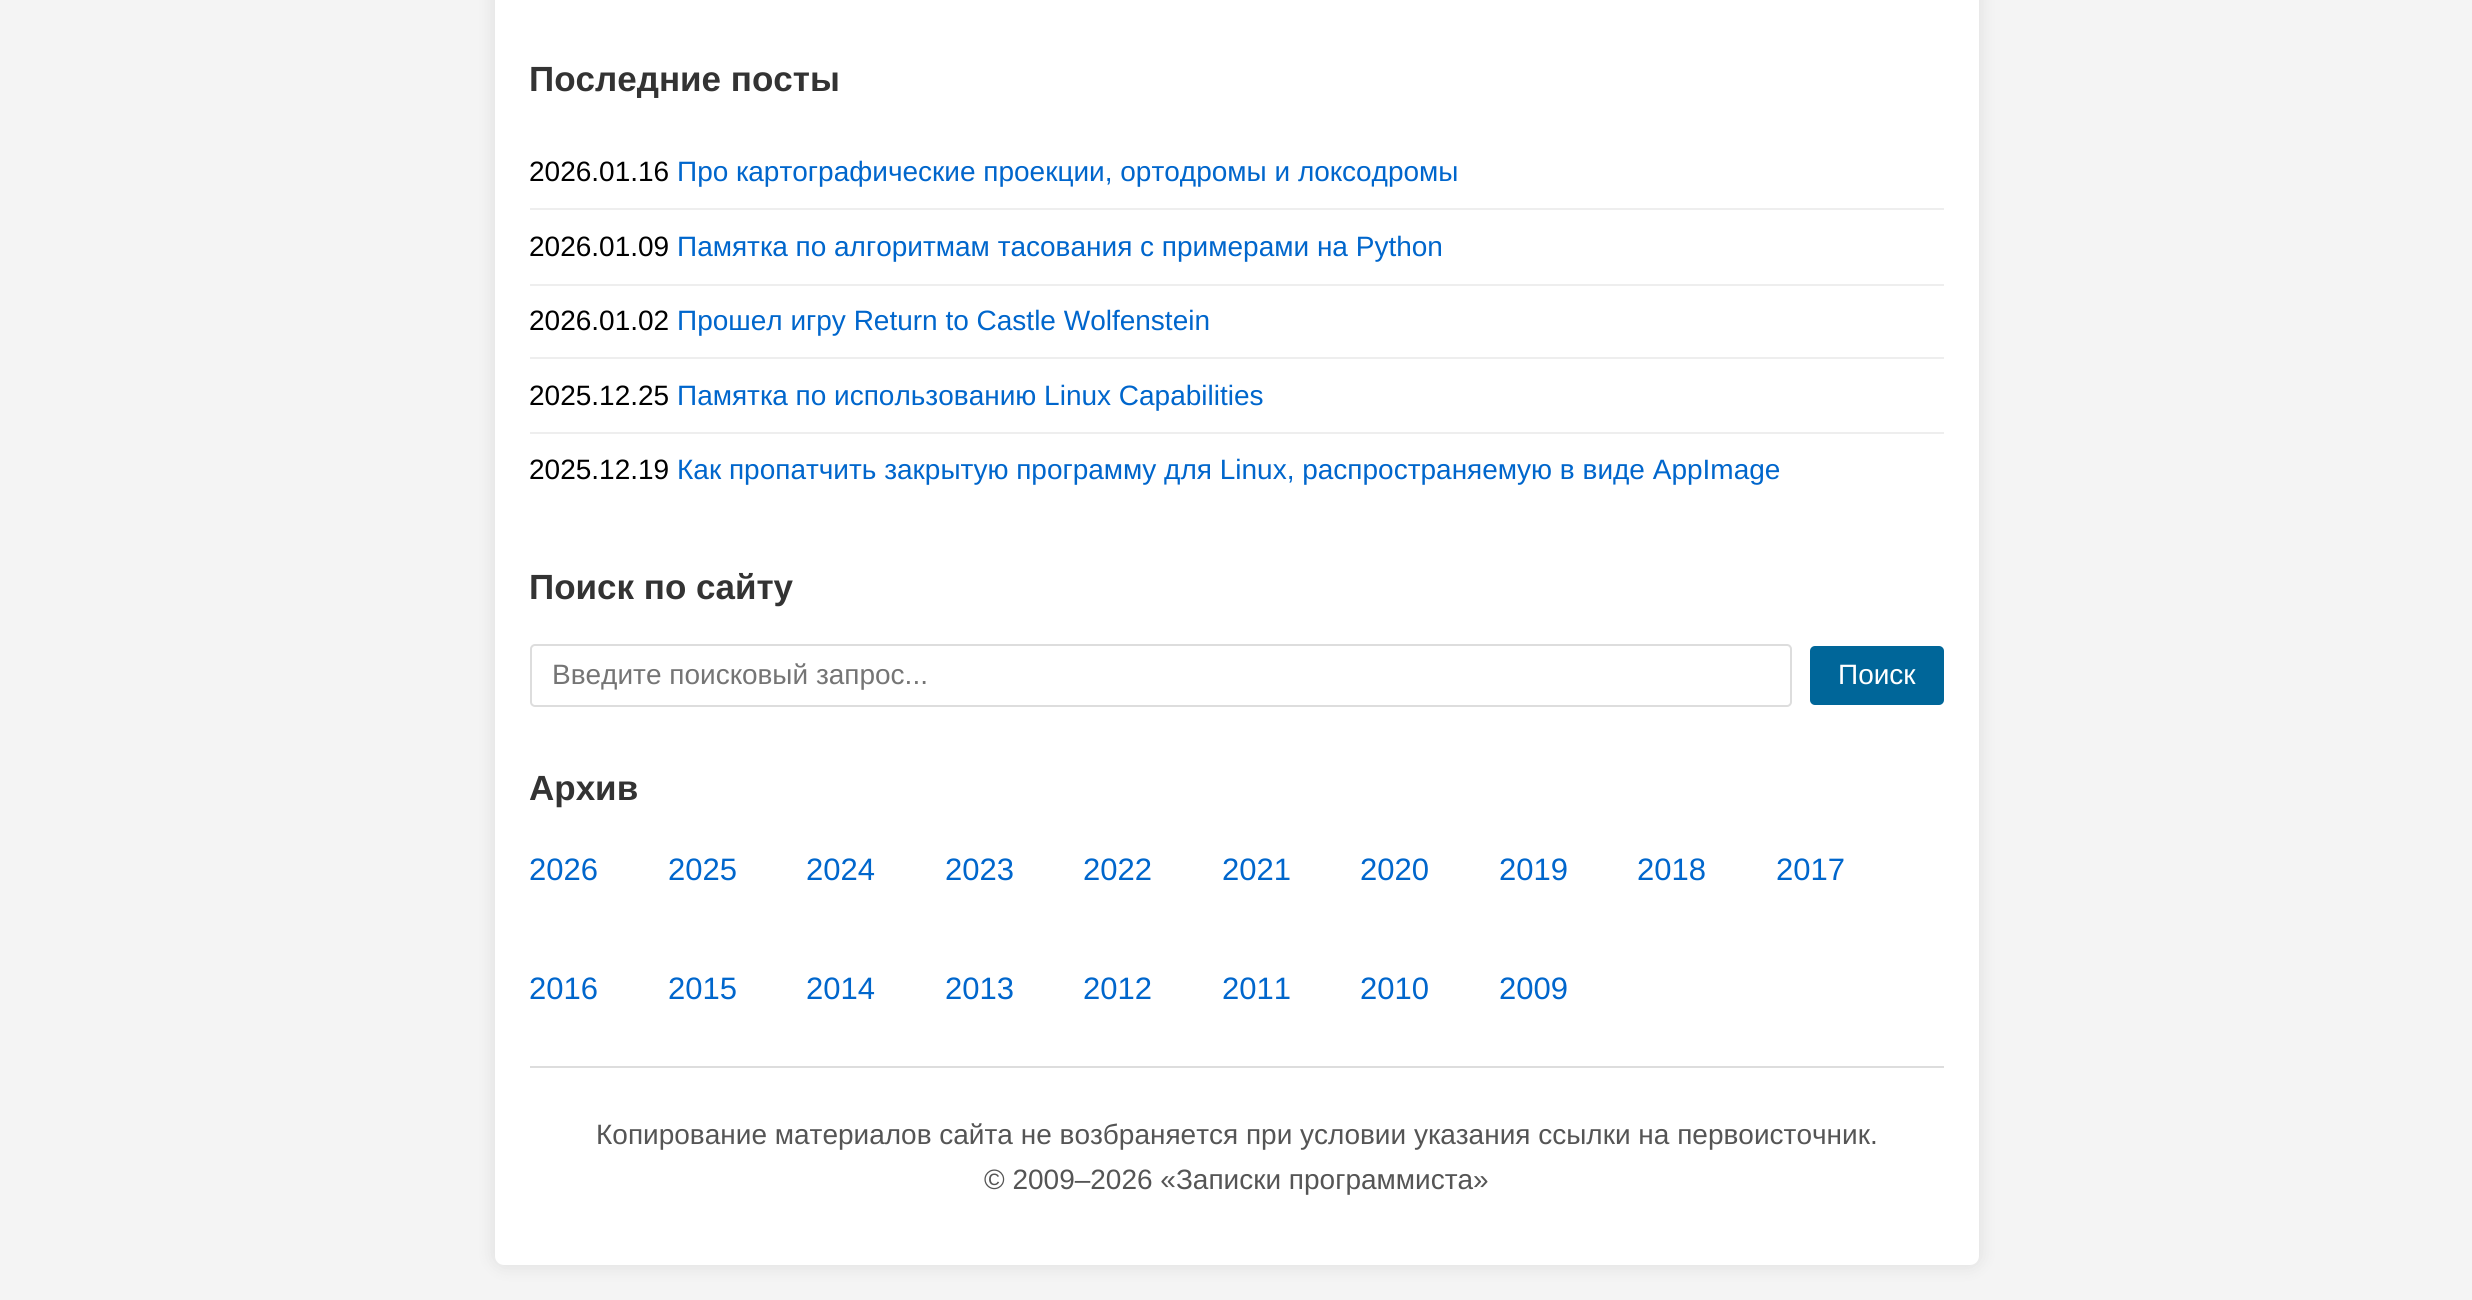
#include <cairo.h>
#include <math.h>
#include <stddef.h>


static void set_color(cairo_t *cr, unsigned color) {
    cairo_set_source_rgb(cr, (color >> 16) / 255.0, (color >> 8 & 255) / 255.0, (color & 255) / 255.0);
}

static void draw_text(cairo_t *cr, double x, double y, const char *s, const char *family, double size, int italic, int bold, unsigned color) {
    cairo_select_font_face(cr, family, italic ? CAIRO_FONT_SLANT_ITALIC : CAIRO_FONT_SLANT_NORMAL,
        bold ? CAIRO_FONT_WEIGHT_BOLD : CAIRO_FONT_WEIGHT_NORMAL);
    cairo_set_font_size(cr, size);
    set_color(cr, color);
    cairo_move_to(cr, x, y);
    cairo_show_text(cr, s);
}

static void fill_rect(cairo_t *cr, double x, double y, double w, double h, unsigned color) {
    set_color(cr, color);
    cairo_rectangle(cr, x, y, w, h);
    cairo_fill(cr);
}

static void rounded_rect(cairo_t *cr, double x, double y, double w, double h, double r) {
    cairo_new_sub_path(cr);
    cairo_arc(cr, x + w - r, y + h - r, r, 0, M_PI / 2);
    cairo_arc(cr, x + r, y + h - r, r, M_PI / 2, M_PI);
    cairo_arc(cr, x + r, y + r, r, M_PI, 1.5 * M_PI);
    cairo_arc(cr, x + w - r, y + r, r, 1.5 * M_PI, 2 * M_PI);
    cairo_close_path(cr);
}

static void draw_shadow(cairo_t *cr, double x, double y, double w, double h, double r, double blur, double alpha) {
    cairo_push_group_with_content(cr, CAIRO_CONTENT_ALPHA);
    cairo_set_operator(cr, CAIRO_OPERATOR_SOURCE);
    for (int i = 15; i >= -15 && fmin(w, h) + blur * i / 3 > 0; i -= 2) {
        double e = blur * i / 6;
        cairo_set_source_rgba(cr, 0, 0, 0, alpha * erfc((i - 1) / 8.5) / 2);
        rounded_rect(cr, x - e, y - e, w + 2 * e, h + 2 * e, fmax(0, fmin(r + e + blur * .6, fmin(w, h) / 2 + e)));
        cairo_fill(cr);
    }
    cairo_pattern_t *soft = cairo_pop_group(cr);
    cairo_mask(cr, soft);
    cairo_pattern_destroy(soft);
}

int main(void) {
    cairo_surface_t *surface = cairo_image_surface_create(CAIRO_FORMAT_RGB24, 2472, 1300);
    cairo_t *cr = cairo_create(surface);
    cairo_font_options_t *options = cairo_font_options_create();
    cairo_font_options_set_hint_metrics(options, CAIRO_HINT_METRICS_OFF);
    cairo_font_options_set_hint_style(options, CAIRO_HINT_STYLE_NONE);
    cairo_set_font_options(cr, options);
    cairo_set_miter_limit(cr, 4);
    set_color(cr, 0xF4F4F4);
    cairo_paint(cr);
    set_color(cr, 0x000000);
    draw_shadow(cr, 495, -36, 1484, 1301, 9, 9, 0.1);
    set_color(cr, 0xFFFFFF);
    rounded_rect(cr, 495, -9, 1484, 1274, 9);
    cairo_fill(cr);
    draw_text(cr, 529, 91, "Последние посты", "Liberation Sans", 35, 0, 1, 0x333333);
    fill_rect(cr, 530, 208, 1414, 2, 0xEEEEEE);
    draw_text(cr, 529, 181, "2026.01.16", "Liberation Sans", 28, 0, 0, 0x000000);
    draw_text(cr, 677, 181, "Про картографические проекции, ортодромы и локсодромы", "Liberation Sans", 28, 0, 0, 0x0066CC);
    fill_rect(cr, 530, 284, 1414, 2, 0xEEEEEE);
    draw_text(cr, 529, 256, "2026.01.09", "Liberation Sans", 28, 0, 0, 0x000000);
    draw_text(cr, 677, 256, "Памятка по алгоритмам тасования с примерами на Python", "Liberation Sans", 28, 0, 0, 0x0066CC);
    fill_rect(cr, 530, 357, 1414, 2, 0xEEEEEE);
    draw_text(cr, 529, 330, "2026.01.02", "Liberation Sans", 28, 0, 0, 0x000000);
    draw_text(cr, 677, 330, "Прошел игру Return to Castle Wolfenstein", "Liberation Sans", 28, 0, 0, 0x0066CC);
    fill_rect(cr, 530, 432, 1414, 2, 0xEEEEEE);
    draw_text(cr, 529, 405, "2025.12.25", "Liberation Sans", 28, 0, 0, 0x000000);
    draw_text(cr, 677, 405, "Памятка по использованию Linux Capabilities", "Liberation Sans", 28, 0, 0, 0x0066CC);
    draw_text(cr, 529, 479, "2025.12.19", "Liberation Sans", 28, 0, 0, 0x000000);
    draw_text(cr, 677, 479, "Как пропатчить закрытую программу для Linux, распространяемую в виде AppImage", "Liberation Sans", 28, 0, 0, 0x0066CC);
    draw_text(cr, 529, 599, "Поиск по сайту", "Liberation Sans", 35, 0, 1, 0x333333);
    rounded_rect(cr, 531, 645, 1260, 61, 4);
    set_color(cr, 0xDDDDDD);
    cairo_stroke(cr);
    draw_text(cr, 552, 684, "Введите поисковый запрос...", "Liberation Sans", 28, 0, 0, 0x757575);
    set_color(cr, 0x006699);
    rounded_rect(cr, 1810, 646, 134, 59, 5);
    cairo_fill(cr);
    draw_text(cr, 1838, 684, "Поиск", "Liberation Sans", 28, 0, 0, 0xFFFFFF);
    draw_text(cr, 529, 800, "Архив", "Liberation Sans", 35, 0, 1, 0x333333);
    draw_text(cr, 529, 880, "2026", "Liberation Sans", 31, 0, 0, 0x0066CC);
    draw_text(cr, 668, 880, "2025", "Liberation Sans", 31, 0, 0, 0x0066CC);
    draw_text(cr, 806, 880, "2024", "Liberation Sans", 31, 0, 0, 0x0066CC);
    draw_text(cr, 945, 880, "2023", "Liberation Sans", 31, 0, 0, 0x0066CC);
    draw_text(cr, 1083, 880, "2022", "Liberation Sans", 31, 0, 0, 0x0066CC);
    draw_text(cr, 1222, 880, "2021", "Liberation Sans", 31, 0, 0, 0x0066CC);
    draw_text(cr, 1360, 880, "2020", "Liberation Sans", 31, 0, 0, 0x0066CC);
    draw_text(cr, 1499, 880, "2019", "Liberation Sans", 31, 0, 0, 0x0066CC);
    draw_text(cr, 1637, 880, "2018", "Liberation Sans", 31, 0, 0, 0x0066CC);
    draw_text(cr, 1776, 880, "2017", "Liberation Sans", 31, 0, 0, 0x0066CC);
    draw_text(cr, 529, 999, "2016", "Liberation Sans", 31, 0, 0, 0x0066CC);
    draw_text(cr, 668, 999, "2015", "Liberation Sans", 31, 0, 0, 0x0066CC);
    draw_text(cr, 806, 999, "2014", "Liberation Sans", 31, 0, 0, 0x0066CC);
    draw_text(cr, 945, 999, "2013", "Liberation Sans", 31, 0, 0, 0x0066CC);
    draw_text(cr, 1083, 999, "2012", "Liberation Sans", 31, 0, 0, 0x0066CC);
    draw_text(cr, 1222, 999, "2011", "Liberation Sans", 31, 0, 0, 0x0066CC);
    draw_text(cr, 1360, 999, "2010", "Liberation Sans", 31, 0, 0, 0x0066CC);
    draw_text(cr, 1499, 999, "2009", "Liberation Sans", 31, 0, 0, 0x0066CC);
    fill_rect(cr, 530, 1066, 1414, 2, 0xDDDDDD);
    draw_text(cr, 596, 1144, "Копирование материалов сайта не возбраняется при условии указания ссылки на первоисточник.", "Liberation Sans", 28, 0, 0, 0x555555);
    draw_text(cr, 984, 1189, "© 2009–2026 «Записки программиста»", "Liberation Sans", 28, 0, 0, 0x555555);
    cairo_surface_write_to_png(surface, "output.png");
    cairo_font_options_destroy(options);
    cairo_destroy(cr);
    cairo_surface_destroy(surface);
    return 0;
}
